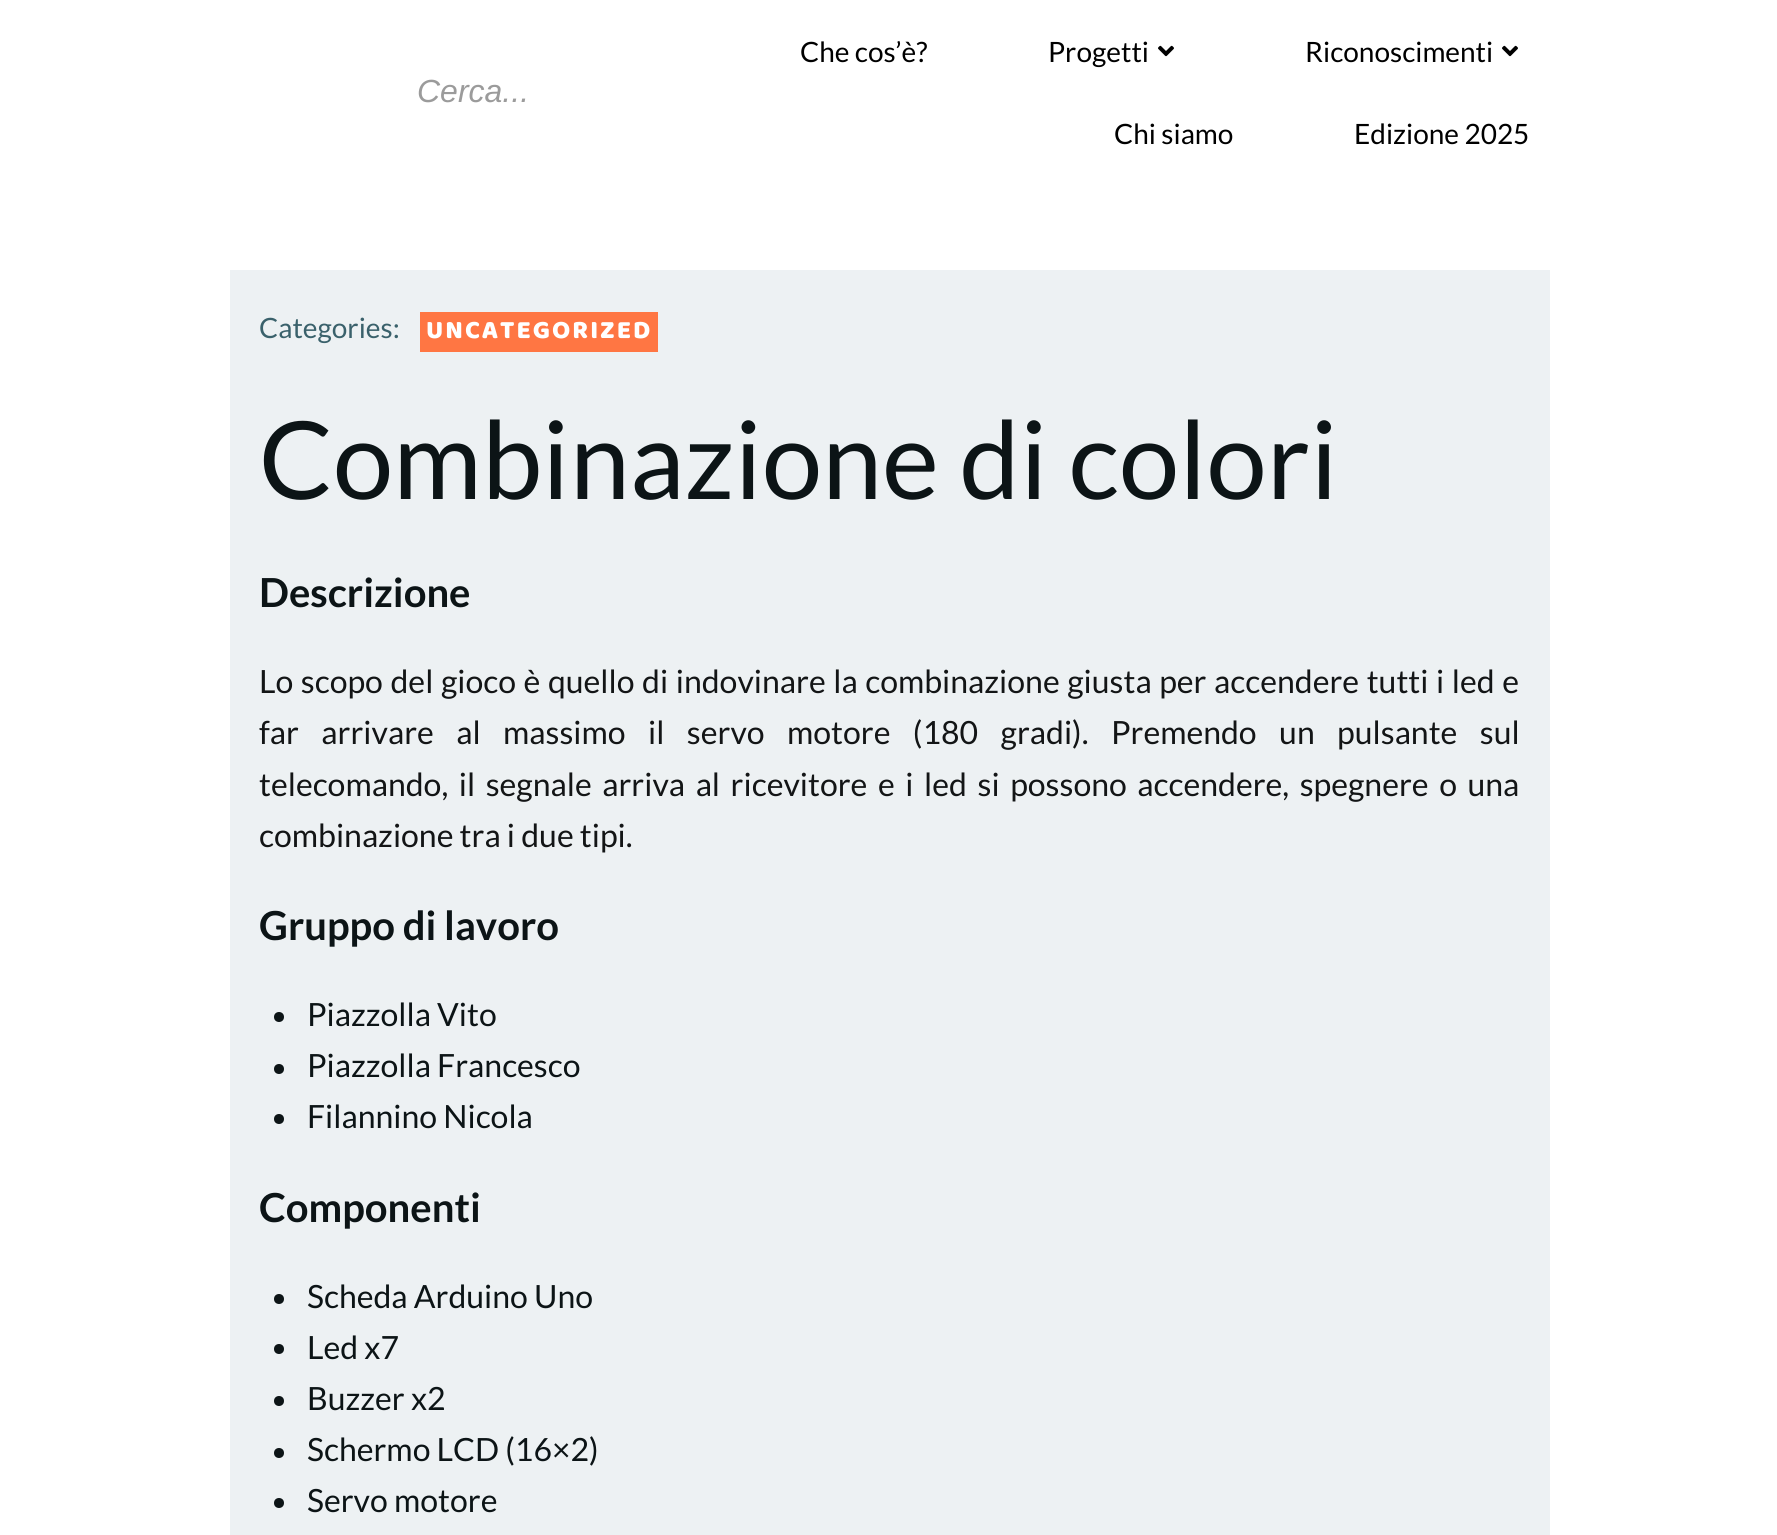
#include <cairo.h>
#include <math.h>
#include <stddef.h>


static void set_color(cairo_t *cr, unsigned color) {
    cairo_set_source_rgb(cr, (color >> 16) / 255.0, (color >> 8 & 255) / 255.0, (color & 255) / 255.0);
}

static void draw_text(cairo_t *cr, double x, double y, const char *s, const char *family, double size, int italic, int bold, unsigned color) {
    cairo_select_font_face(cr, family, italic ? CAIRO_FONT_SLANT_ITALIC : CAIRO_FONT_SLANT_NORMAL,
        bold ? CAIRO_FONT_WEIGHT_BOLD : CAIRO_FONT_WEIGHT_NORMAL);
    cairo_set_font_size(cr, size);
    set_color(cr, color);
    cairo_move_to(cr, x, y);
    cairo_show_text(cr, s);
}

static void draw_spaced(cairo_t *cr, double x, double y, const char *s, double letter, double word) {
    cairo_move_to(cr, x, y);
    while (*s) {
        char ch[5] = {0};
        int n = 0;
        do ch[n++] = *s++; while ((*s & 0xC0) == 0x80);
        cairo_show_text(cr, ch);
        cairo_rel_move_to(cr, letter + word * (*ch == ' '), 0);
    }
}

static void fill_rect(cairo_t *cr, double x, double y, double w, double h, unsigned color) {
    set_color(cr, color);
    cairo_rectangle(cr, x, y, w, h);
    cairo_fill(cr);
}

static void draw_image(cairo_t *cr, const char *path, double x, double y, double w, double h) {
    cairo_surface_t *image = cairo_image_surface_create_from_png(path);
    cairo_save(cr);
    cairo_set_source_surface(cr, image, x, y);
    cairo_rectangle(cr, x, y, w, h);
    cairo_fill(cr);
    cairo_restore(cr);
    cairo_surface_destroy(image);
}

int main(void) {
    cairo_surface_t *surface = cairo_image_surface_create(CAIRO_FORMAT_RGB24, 1777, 1535);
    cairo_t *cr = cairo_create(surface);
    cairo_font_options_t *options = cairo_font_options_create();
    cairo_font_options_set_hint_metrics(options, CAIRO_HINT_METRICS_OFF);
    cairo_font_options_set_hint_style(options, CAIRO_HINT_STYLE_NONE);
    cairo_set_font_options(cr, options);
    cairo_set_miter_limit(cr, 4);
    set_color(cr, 0xFFFFFF);
    cairo_paint(cr);
    draw_text(cr, 417, 102, "Cerca...", "Liberation Sans", 32, 1, 0, 0x9B9B9B);
    draw_text(cr, 800, 62, "Che cos’è?", "Lato", 28, 0, 0, 0x000000);
    draw_text(cr, 1048, 62, "Progetti", "Lato", 28, 0, 0, 0x000000);
    draw_image(cr, "assets/img1.png", 1158, 45, 16, 12);
    draw_text(cr, 1305, 62, "Riconoscimenti", "Lato", 28, 0, 0, 0x000000);
    draw_image(cr, "assets/img1.png", 1502, 45, 16, 12);
    draw_text(cr, 1114, 144, "Chi siamo", "Lato", 28, 0, 0, 0x000000);
    draw_text(cr, 1354, 144, "Edizione 2025", "Lato", 28, 0, 0, 0x000000);
    fill_rect(cr, 230, 270, 1320, 1265, 0xEDF1F3);
    draw_text(cr, 259, 338, "Categories:", "Lato", 28, 0, 0, 0x3A616B);
    fill_rect(cr, 420, 312, 238, 40, 0xFF7643);
    cairo_select_font_face(cr, "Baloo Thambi", CAIRO_FONT_SLANT_NORMAL, CAIRO_FONT_WEIGHT_NORMAL);
    cairo_set_font_size(cr, 26);
    set_color(cr, 0xFFFFFF);
    draw_spaced(cr, 426, 338, "UNCATEGORIZED", 2, 0);
    draw_text(cr, 259, 499, "Combinazione di colori", "Lato", 108, 0, 0, 0x0C1416);
    draw_text(cr, 259, 607, "Descrizione", "Lato", 40, 0, 1, 0x0C1416);
    cairo_select_font_face(cr, "Lato", CAIRO_FONT_SLANT_NORMAL, CAIRO_FONT_WEIGHT_NORMAL);
    cairo_set_font_size(cr, 32);
    set_color(cr, 0x131516);
    draw_spaced(cr, 259, 693, "Lo scopo del gioco è quello di indovinare la combinazione giusta per accendere tutti i led e", 0, 1.4);
    draw_spaced(cr, 259, 744, "far arrivare al massimo il servo motore (180 gradi). Premendo un pulsante sul", 0, 16.25);
    draw_spaced(cr, 259, 796, "telecomando, il segnale arriva al ricevitore e i led si possono accendere, spegnere o una", 0, 4.4);
    draw_text(cr, 259, 847, "combinazione tra i due tipi.", "Lato", 32, 0, 0, 0x131516);
    draw_text(cr, 259, 940, "Gruppo di lavoro", "Lato", 40, 0, 1, 0x0C1416);
    cairo_new_path(cr);
    cairo_arc(cr, 279, 1017, 5, 0, 2 * M_PI);
    cairo_fill(cr);
    draw_text(cr, 307, 1026, "Piazzolla Vito", "Lato", 32, 0, 0, 0x0C1416);
    cairo_new_path(cr);
    cairo_arc(cr, 279, 1069, 5, 0, 2 * M_PI);
    cairo_fill(cr);
    draw_text(cr, 307, 1077, "Piazzolla Francesco", "Lato", 32, 0, 0, 0x0C1416);
    cairo_new_path(cr);
    cairo_arc(cr, 279, 1119, 5, 0, 2 * M_PI);
    cairo_fill(cr);
    draw_text(cr, 307, 1128, "Filannino Nicola", "Lato", 32, 0, 0, 0x0C1416);
    draw_text(cr, 259, 1222, "Componenti", "Lato", 40, 0, 1, 0x0C1416);
    cairo_new_path(cr);
    cairo_arc(cr, 279, 1299, 5, 0, 2 * M_PI);
    cairo_fill(cr);
    draw_text(cr, 307, 1308, "Scheda Arduino Uno", "Lato", 32, 0, 0, 0x0C1416);
    cairo_new_path(cr);
    cairo_arc(cr, 279, 1349, 5, 0, 2 * M_PI);
    cairo_fill(cr);
    draw_text(cr, 307, 1359, "Led x7", "Lato", 32, 0, 0, 0x0C1416);
    cairo_new_path(cr);
    cairo_arc(cr, 279, 1401, 5, 0, 2 * M_PI);
    cairo_fill(cr);
    draw_text(cr, 307, 1410, "Buzzer x2", "Lato", 32, 0, 0, 0x0C1416);
    cairo_new_path(cr);
    cairo_arc(cr, 279, 1453, 5, 0, 2 * M_PI);
    cairo_fill(cr);
    draw_text(cr, 307, 1461, "Schermo LCD (16×2)", "Lato", 32, 0, 0, 0x0C1416);
    cairo_new_path(cr);
    cairo_arc(cr, 279, 1503, 5, 0, 2 * M_PI);
    cairo_fill(cr);
    draw_text(cr, 307, 1512, "Servo motore", "Lato", 32, 0, 0, 0x0C1416);
    cairo_surface_write_to_png(surface, "output.png");
    cairo_font_options_destroy(options);
    cairo_destroy(cr);
    cairo_surface_destroy(surface);
    return 0;
}
